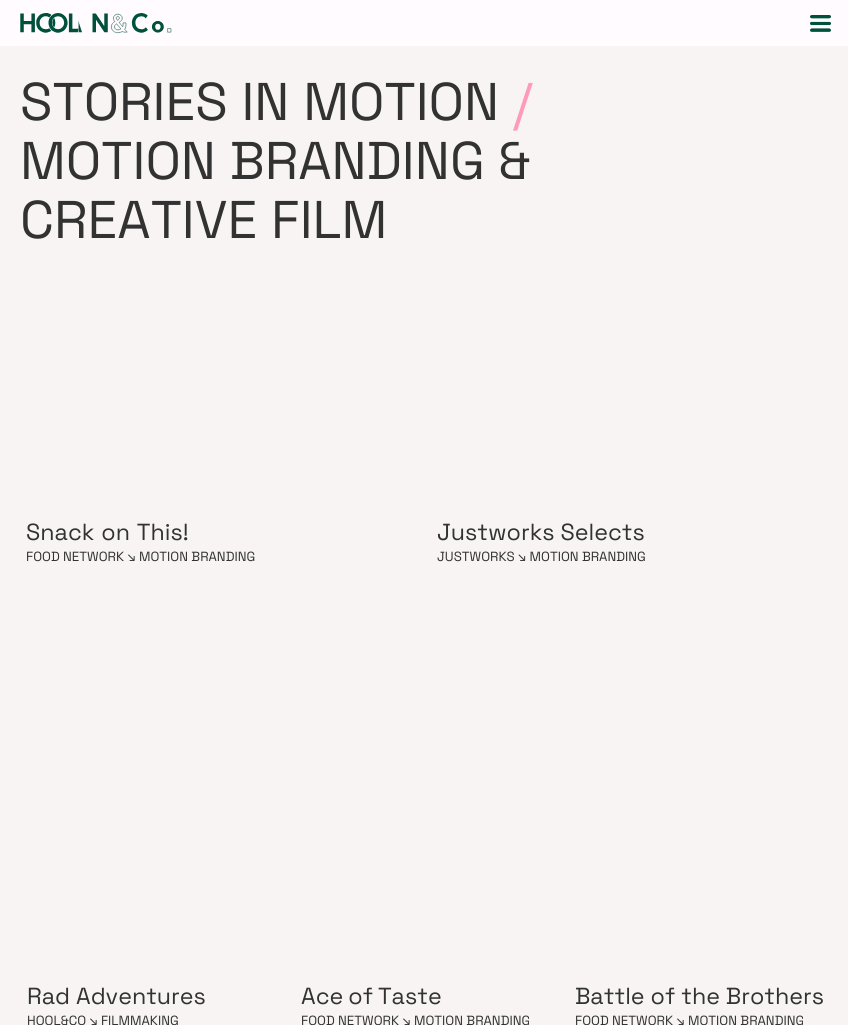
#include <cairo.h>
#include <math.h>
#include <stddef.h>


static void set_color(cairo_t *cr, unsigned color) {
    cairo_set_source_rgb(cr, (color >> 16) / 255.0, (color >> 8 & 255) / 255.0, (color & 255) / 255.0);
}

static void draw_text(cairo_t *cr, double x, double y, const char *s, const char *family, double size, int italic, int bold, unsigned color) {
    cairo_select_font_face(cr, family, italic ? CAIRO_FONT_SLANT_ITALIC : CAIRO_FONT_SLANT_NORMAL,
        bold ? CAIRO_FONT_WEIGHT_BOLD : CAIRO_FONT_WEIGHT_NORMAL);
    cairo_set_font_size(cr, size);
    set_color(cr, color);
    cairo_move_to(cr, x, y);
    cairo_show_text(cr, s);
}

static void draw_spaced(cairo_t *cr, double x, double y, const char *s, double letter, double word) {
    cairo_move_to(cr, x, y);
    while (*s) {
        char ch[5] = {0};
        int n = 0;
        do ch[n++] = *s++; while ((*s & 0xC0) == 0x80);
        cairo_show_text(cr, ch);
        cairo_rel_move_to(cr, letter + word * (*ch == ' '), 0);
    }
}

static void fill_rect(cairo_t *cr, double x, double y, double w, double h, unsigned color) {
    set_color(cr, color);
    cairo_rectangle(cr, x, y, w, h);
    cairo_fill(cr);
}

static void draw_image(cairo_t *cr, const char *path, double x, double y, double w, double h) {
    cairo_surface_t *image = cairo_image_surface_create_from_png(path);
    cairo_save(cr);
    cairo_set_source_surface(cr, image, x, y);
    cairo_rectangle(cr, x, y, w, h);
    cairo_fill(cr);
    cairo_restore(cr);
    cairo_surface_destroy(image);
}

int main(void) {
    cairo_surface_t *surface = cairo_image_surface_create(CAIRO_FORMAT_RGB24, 848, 1025);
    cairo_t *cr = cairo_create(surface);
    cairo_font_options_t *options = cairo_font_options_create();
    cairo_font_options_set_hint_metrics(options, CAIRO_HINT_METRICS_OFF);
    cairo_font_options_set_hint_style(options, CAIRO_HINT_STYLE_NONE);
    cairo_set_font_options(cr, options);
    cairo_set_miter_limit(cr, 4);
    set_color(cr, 0xF7F4F3);
    cairo_paint(cr);
    fill_rect(cr, 0, 0, 848, 46, 0xFFFBFF);
    draw_image(cr, "assets/img1.png", 20, 13, 152, 21);
    draw_image(cr, "assets/img2.png", 810, 15, 21, 17);
    draw_text(cr, 20, 120, "STORIES IN MOTION", "Space Grotesk", 53, 0, 0, 0x323232);
    draw_text(cr, 513, 120, "/", "Space Grotesk", 53, 0, 0, 0xFF9BB8);
    draw_text(cr, 20, 179, "MOTION BRANDING &", "Space Grotesk", 53, 0, 0, 0x323232);
    draw_text(cr, 20, 238, "CREATIVE FILM", "Space Grotesk", 53, 0, 0, 0x323232);
    cairo_set_font_size(cr, 23.25);
    draw_spaced(cr, 26, 540, "Snack on This!", 0, 1);
    draw_text(cr, 437, 540, "Justworks Selects", "Space Grotesk", 23.25, 0, 0, 0x323232);
    draw_text(cr, 26, 561, "FOOD NETWORK ↘ MOTION BRANDING", "Space Grotesk", 13.25, 0, 0, 0x323232);
    draw_text(cr, 437, 561, "JUSTWORKS ↘ MOTION BRANDING", "Space Grotesk", 13.25, 0, 0, 0x323232);
    draw_text(cr, 27, 1004, "Rad Adventures", "Space Grotesk", 23.25, 0, 0, 0x323232);
    draw_spaced(cr, 301, 1004, "Ace of Taste", 0, -1);
    draw_text(cr, 575, 1004, "Battle of the Brothers", "Space Grotesk", 23.25, 0, 0, 0x323232);
    draw_text(cr, 27, 1025, "HOOL&CO ↘ FILMMAKING", "Space Grotesk", 13.25, 0, 0, 0x323232);
    draw_text(cr, 301, 1025, "FOOD NETWORK ↘ MOTION BRANDING", "Space Grotesk", 13.25, 0, 0, 0x323232);
    draw_text(cr, 575, 1025, "FOOD NETWORK ↘ MOTION BRANDING", "Space Grotesk", 13.25, 0, 0, 0x323232);
    cairo_surface_write_to_png(surface, "output.png");
    cairo_font_options_destroy(options);
    cairo_destroy(cr);
    cairo_surface_destroy(surface);
    return 0;
}
